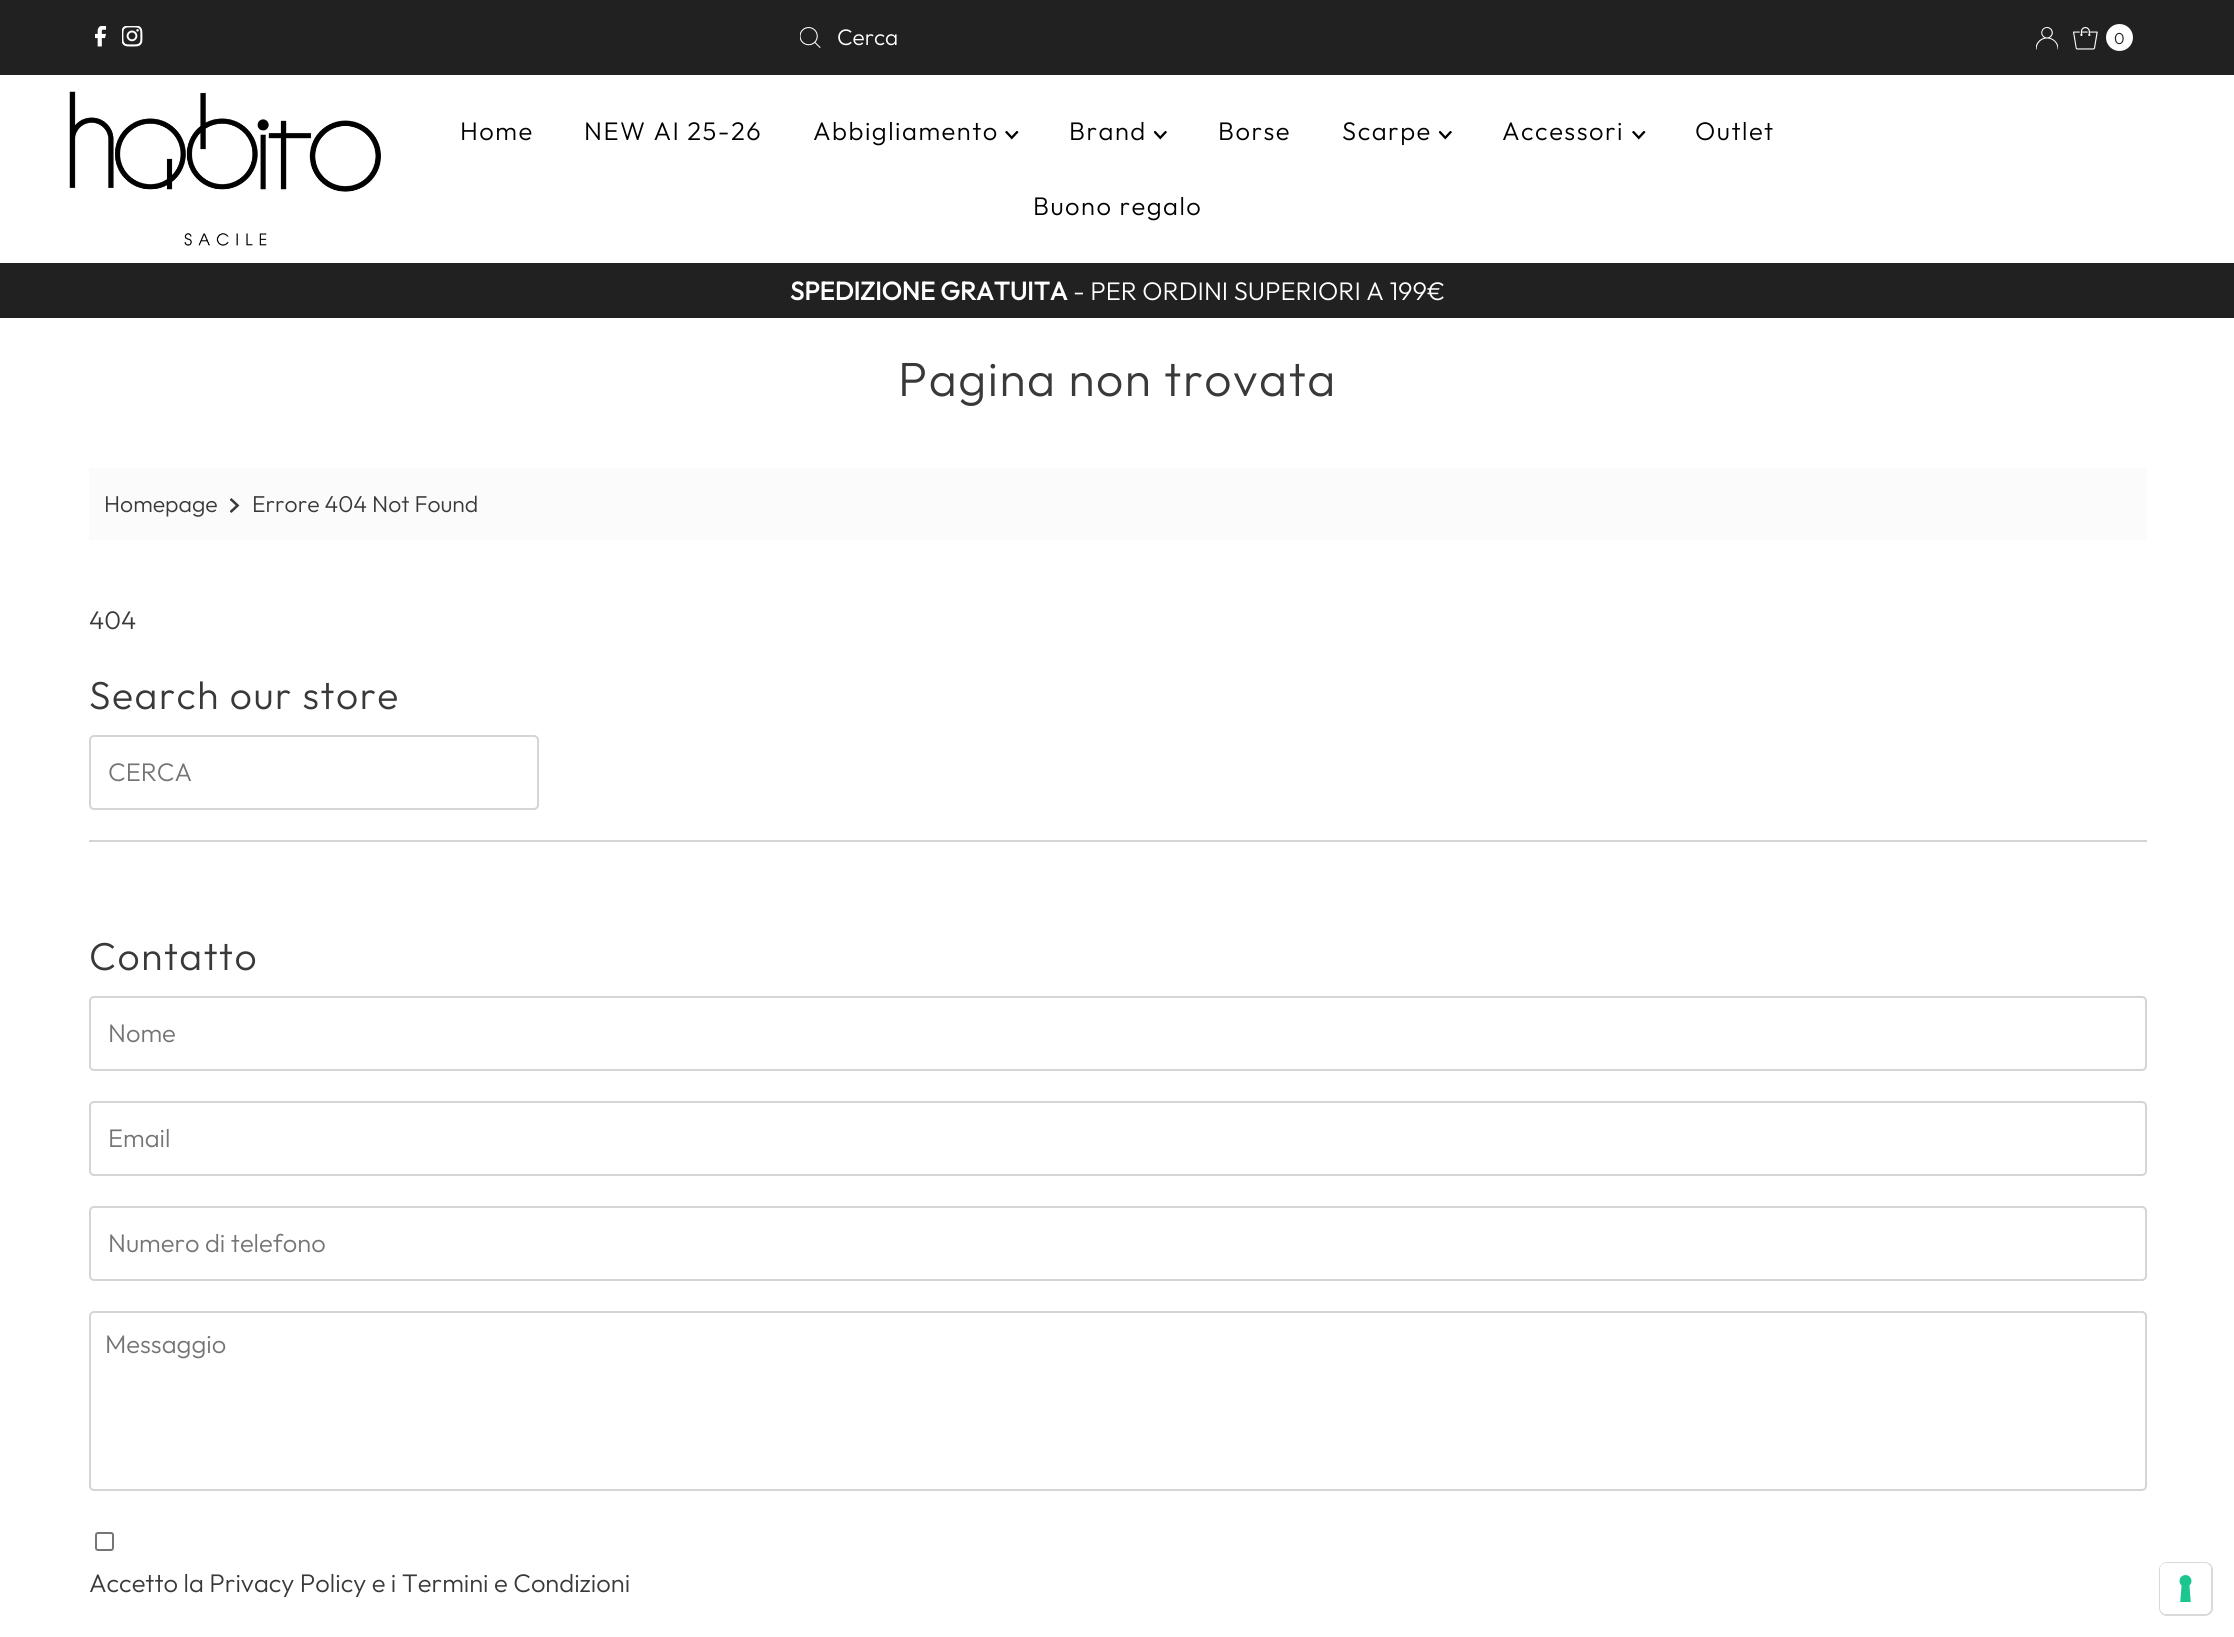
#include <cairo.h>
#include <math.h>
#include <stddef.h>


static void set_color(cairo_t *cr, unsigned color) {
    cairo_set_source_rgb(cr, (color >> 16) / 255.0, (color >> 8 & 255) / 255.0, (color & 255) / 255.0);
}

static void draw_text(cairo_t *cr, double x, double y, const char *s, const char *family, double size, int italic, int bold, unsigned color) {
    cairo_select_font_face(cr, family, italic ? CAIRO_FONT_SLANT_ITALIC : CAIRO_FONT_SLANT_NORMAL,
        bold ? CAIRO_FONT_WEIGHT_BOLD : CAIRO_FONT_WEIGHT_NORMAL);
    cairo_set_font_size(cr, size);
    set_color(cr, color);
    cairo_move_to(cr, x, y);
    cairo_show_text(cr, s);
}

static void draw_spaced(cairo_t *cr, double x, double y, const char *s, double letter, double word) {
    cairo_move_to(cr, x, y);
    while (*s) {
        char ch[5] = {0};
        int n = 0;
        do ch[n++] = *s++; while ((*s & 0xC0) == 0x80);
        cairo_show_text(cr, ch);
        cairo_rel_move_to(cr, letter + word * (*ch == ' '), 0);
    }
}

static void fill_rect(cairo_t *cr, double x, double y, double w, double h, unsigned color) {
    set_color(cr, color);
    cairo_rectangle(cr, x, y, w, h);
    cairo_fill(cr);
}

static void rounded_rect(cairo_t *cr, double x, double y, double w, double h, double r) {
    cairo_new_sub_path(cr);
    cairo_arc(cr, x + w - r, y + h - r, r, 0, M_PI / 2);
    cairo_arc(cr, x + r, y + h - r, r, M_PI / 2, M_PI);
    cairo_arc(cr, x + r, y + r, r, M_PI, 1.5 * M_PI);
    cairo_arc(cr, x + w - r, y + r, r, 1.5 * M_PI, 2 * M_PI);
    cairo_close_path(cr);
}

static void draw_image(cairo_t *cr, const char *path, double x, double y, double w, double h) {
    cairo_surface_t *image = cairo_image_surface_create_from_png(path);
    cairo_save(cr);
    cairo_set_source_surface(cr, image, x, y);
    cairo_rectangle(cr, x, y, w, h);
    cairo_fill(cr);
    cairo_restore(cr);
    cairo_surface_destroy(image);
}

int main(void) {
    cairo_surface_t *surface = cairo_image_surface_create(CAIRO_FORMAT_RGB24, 2234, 1637);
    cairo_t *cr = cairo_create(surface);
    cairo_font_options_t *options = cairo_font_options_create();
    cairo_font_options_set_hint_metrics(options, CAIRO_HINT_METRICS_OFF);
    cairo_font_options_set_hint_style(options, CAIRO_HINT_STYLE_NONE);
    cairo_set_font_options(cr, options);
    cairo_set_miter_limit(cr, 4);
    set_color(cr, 0xFFFFFF);
    cairo_paint(cr);
    fill_rect(cr, 0, 0, 2234, 75, 0x212121);
    draw_image(cr, "assets/img1.png", 95, 26, 12, 21);
    draw_image(cr, "assets/img2.png", 122, 26, 21, 21);
    draw_image(cr, "assets/img3.png", 800, 27, 21, 21);
    draw_text(cr, 837, 45, "Cerca", "Outfit Light", 22.5, 0, 0, 0xFFFFFF);
    draw_image(cr, "assets/img4.png", 2036, 27, 22, 23);
    draw_image(cr, "assets/img5.png", 2073, 27, 25, 23);
    cairo_arc(cr, 2119.5, 37.5, 13.5, 0, 2 * M_PI);
    cairo_fill(cr);
    draw_text(cr, 2114, 44, "0", "Outfit Light", 16, 0, 0, 0x212121);
    draw_image(cr, "assets/img6.png", 69, 91, 312, 155);
    cairo_set_font_size(cr, 25.5);
    set_color(cr, 0x000000);
    draw_spaced(cr, 460, 140, "Home", 1.5, 0);
    draw_spaced(cr, 584, 140, "NEW AI 25-26", 1.5, 0);
    draw_spaced(cr, 813, 140, "Abbigliamento", 1.5, 0);
    draw_image(cr, "assets/img7.png", 1005, 131, 14, 9);
    draw_spaced(cr, 1069, 140, "Brand", 1.5, 0);
    draw_image(cr, "assets/img8.png", 1154, 131, 13, 9);
    draw_spaced(cr, 1218, 140, "Borse", 1.5, 0);
    draw_spaced(cr, 1342, 140, "Scarpe", 1.5, 0);
    draw_image(cr, "assets/img8.png", 1439, 131, 13, 9);
    draw_spaced(cr, 1502, 140, "Accessori", 1.5, 0);
    draw_image(cr, "assets/img7.png", 1632, 131, 14, 9);
    draw_spaced(cr, 1695, 140, "Outlet", 1.5, 0);
    draw_spaced(cr, 1033, 215, "Buono regalo", 1.5, 0);
    fill_rect(cr, 0, 263, 2234, 55, 0x212121);
    draw_text(cr, 790, 300, "SPEDIZIONE GRATUITA", "Outfit", 25.5, 0, 1, 0xFFFFFF);
    draw_text(cr, 1073, 300, "- PER ORDINI SUPERIORI A 199€", "Outfit Light", 25.5, 0, 0, 0xFFFFFF);
    cairo_set_font_size(cr, 48);
    set_color(cr, 0x393939);
    draw_spaced(cr, 898, 396, "Pagina non trovata", 1.5, 0);
    fill_rect(cr, 89, 468, 2058, 72, 0xFBFBFB);
    draw_text(cr, 104, 512, "Homepage", "Outfit Light", 23, 0, 0, 0x393939);
    draw_image(cr, "assets/img9.png", 230, 498, 10, 15);
    draw_text(cr, 252, 512, "Errore 404 Not Found", "Outfit Light", 23, 0, 0, 0x393939);
    draw_text(cr, 89, 629, "404", "Outfit Light", 25.5, 0, 0, 0x393939);
    fill_rect(cr, 89, 840, 2058, 2, 0xD5D5D5);
    cairo_set_font_size(cr, 39);
    set_color(cr, 0x393939);
    draw_spaced(cr, 89, 709, "Search our store", 1.5, 0);
    rounded_rect(cr, 90, 736, 448, 73, 4);
    set_color(cr, 0xD5D5D5);
    cairo_stroke(cr);
    draw_text(cr, 108, 781, "CERCA", "Outfit Light", 25.5, 0, 0, 0x757575);
    cairo_set_font_size(cr, 39);
    set_color(cr, 0x393939);
    draw_spaced(cr, 89, 970, "Contatto", 1.5, 0);
    rounded_rect(cr, 90, 997, 2056, 73, 4);
    set_color(cr, 0xD5D5D5);
    cairo_stroke(cr);
    draw_text(cr, 108, 1042, "Nome", "Outfit Light", 25.5, 0, 0, 0x757575);
    rounded_rect(cr, 90, 1102, 2056, 73, 4);
    set_color(cr, 0xD5D5D5);
    cairo_stroke(cr);
    draw_text(cr, 108, 1147, "Email", "Outfit Light", 25.5, 0, 0, 0x757575);
    rounded_rect(cr, 90, 1207, 2056, 73, 4);
    set_color(cr, 0xD5D5D5);
    cairo_stroke(cr);
    draw_text(cr, 108, 1252, "Numero di telefono", "Outfit Light", 25.5, 0, 0, 0x757575);
    rounded_rect(cr, 90, 1312, 2056, 178, 4);
    set_color(cr, 0xD5D5D5);
    cairo_stroke(cr);
    draw_text(cr, 105, 1353, "Messaggio", "Outfit Light", 25.5, 0, 0, 0x757575);
    rounded_rect(cr, 96, 1533, 17, 17, 2);
    set_color(cr, 0x767676);
    cairo_stroke(cr);
    draw_text(cr, 89, 1592, "Accetto la Privacy Policy e i Termini e Condizioni", "Outfit Light", 25.5, 0, 0, 0x393939);
    rounded_rect(cr, 2160, 1563, 52, 52, 7);
    set_color(cr, 0xD9D9D9);
    cairo_stroke(cr);
    set_color(cr, 0xFFFFFF);
    rounded_rect(cr, 2160, 1563, 51, 51, 6);
    cairo_fill(cr);
    draw_image(cr, "assets/img10.png", 2179, 1575, 13, 27);
    cairo_surface_write_to_png(surface, "output.png");
    cairo_font_options_destroy(options);
    cairo_destroy(cr);
    cairo_surface_destroy(surface);
    return 0;
}
